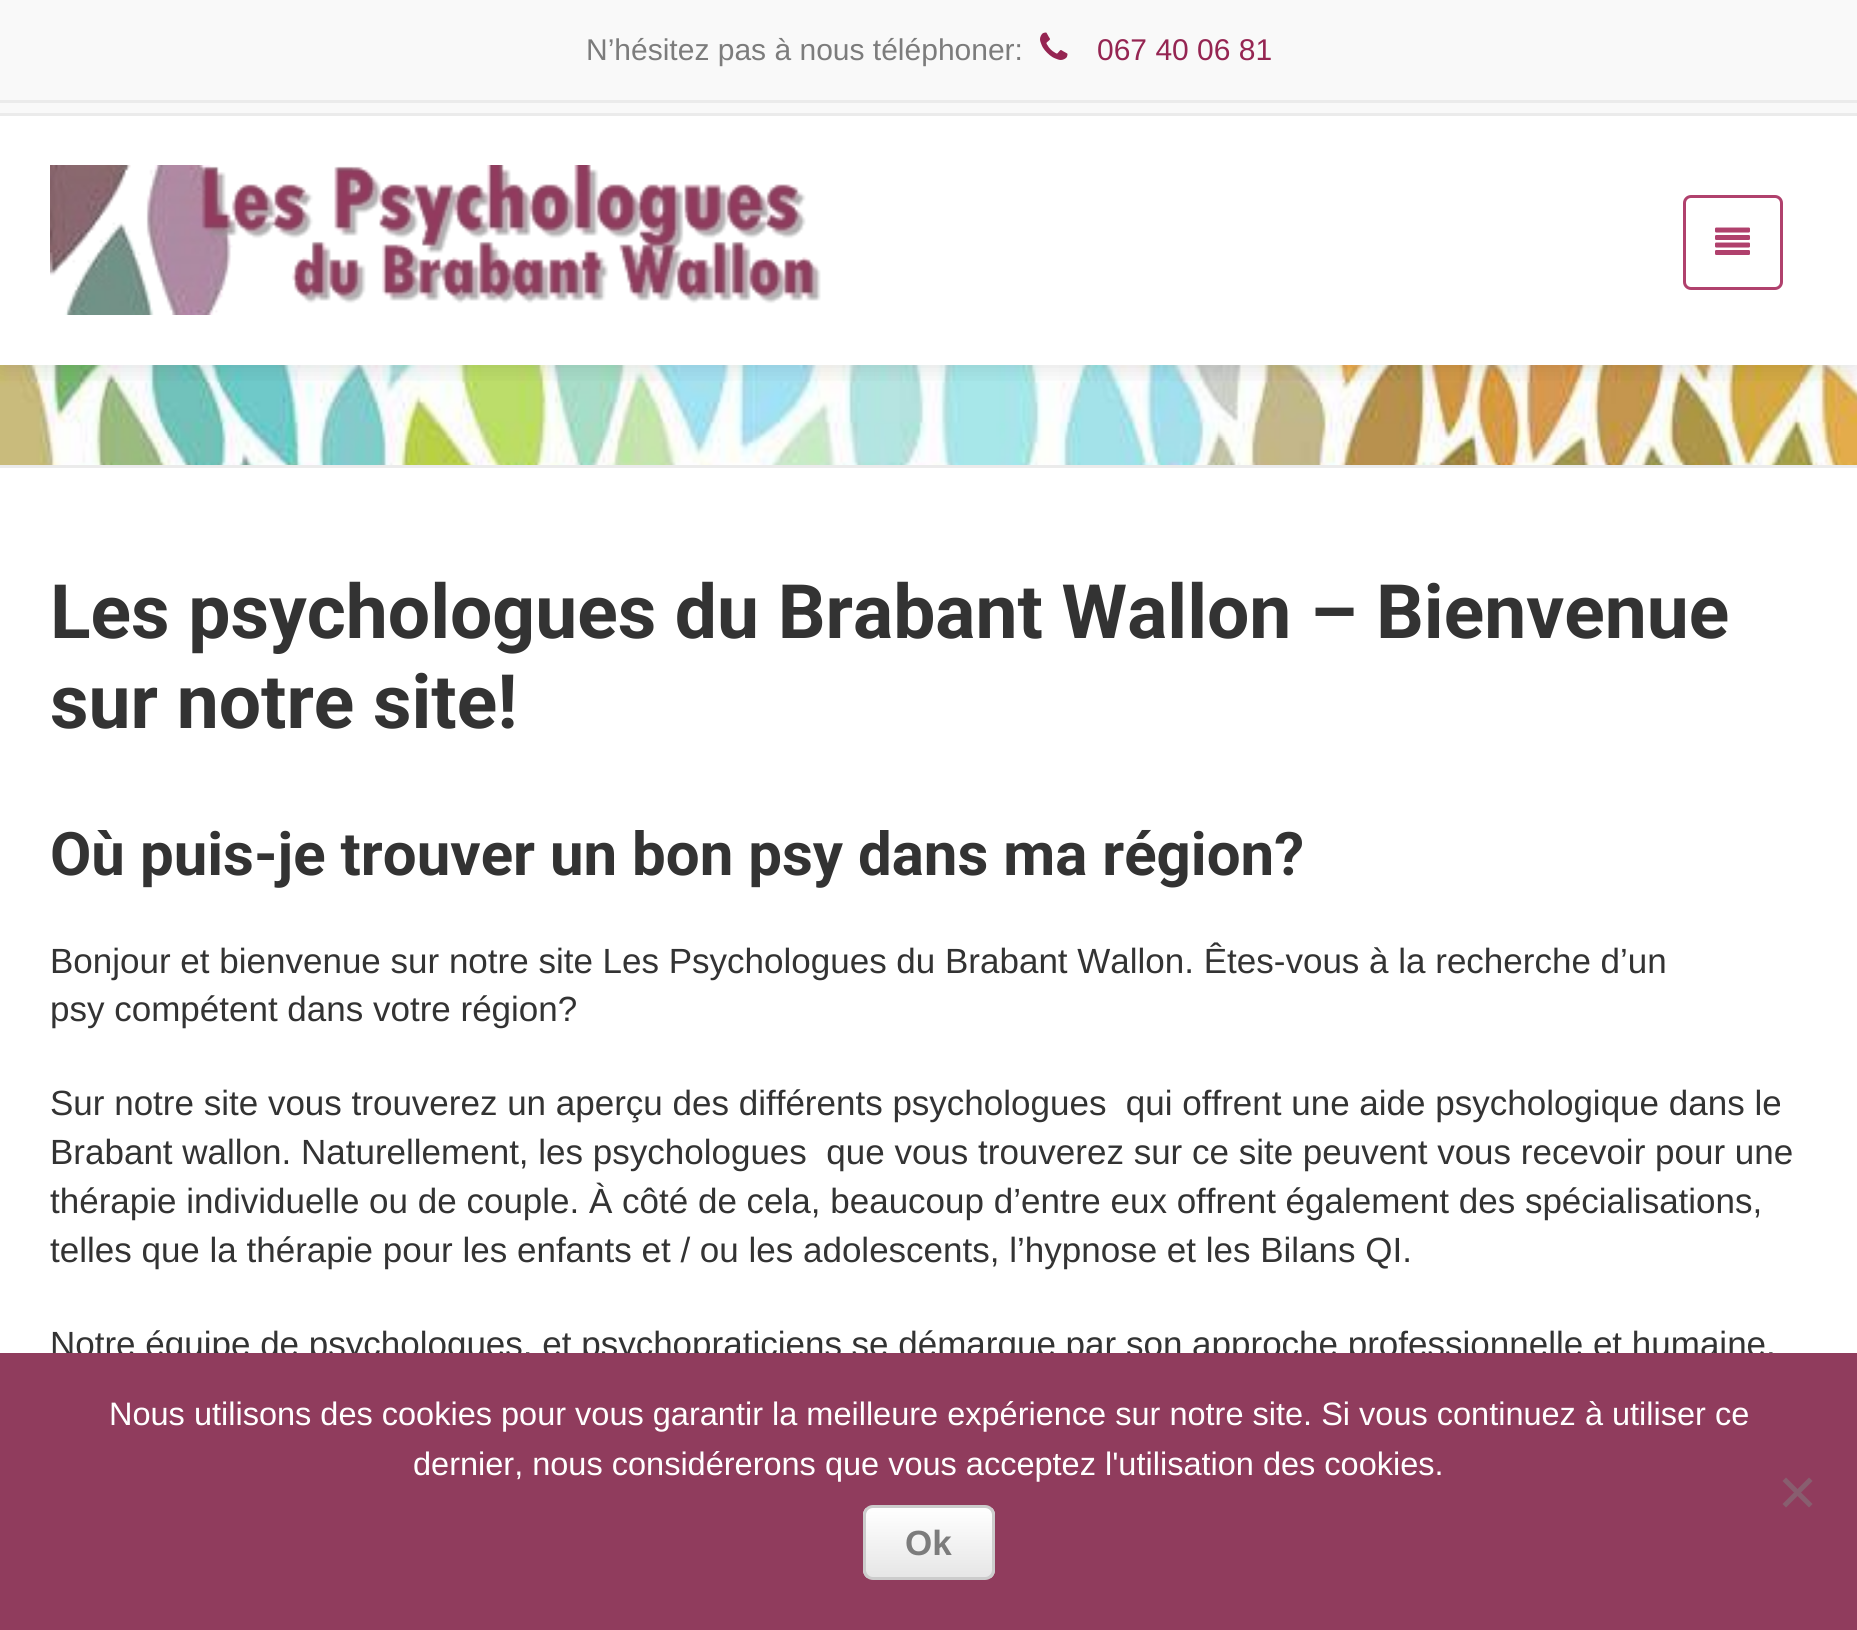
#include <cairo.h>
#include <math.h>
#include <stddef.h>


static void set_color(cairo_t *cr, unsigned color) {
    cairo_set_source_rgb(cr, (color >> 16) / 255.0, (color >> 8 & 255) / 255.0, (color & 255) / 255.0);
}

static void draw_text(cairo_t *cr, double x, double y, const char *s, const char *family, double size, int italic, int bold, unsigned color) {
    cairo_select_font_face(cr, family, italic ? CAIRO_FONT_SLANT_ITALIC : CAIRO_FONT_SLANT_NORMAL,
        bold ? CAIRO_FONT_WEIGHT_BOLD : CAIRO_FONT_WEIGHT_NORMAL);
    cairo_set_font_size(cr, size);
    set_color(cr, color);
    cairo_move_to(cr, x, y);
    cairo_show_text(cr, s);
}

static void fill_rect(cairo_t *cr, double x, double y, double w, double h, unsigned color) {
    set_color(cr, color);
    cairo_rectangle(cr, x, y, w, h);
    cairo_fill(cr);
}

static void rounded_rect(cairo_t *cr, double x, double y, double w, double h, double r) {
    cairo_new_sub_path(cr);
    cairo_arc(cr, x + w - r, y + h - r, r, 0, M_PI / 2);
    cairo_arc(cr, x + r, y + h - r, r, M_PI / 2, M_PI);
    cairo_arc(cr, x + r, y + r, r, M_PI, 1.5 * M_PI);
    cairo_arc(cr, x + w - r, y + r, r, 1.5 * M_PI, 2 * M_PI);
    cairo_close_path(cr);
}

static void draw_shadow(cairo_t *cr, double x, double y, double w, double h, double r, double blur, double alpha) {
    cairo_push_group_with_content(cr, CAIRO_CONTENT_ALPHA);
    cairo_set_operator(cr, CAIRO_OPERATOR_SOURCE);
    for (int i = 15; i >= -15 && fmin(w, h) + blur * i / 3 > 0; i -= 2) {
        double e = blur * i / 6;
        cairo_set_source_rgba(cr, 0, 0, 0, alpha * erfc((i - 1) / 8.5) / 2);
        rounded_rect(cr, x - e, y - e, w + 2 * e, h + 2 * e, fmax(0, fmin(r + e + blur * .6, fmin(w, h) / 2 + e)));
        cairo_fill(cr);
    }
    cairo_pattern_t *soft = cairo_pop_group(cr);
    cairo_mask(cr, soft);
    cairo_pattern_destroy(soft);
}

static void draw_image(cairo_t *cr, const char *path, double x, double y, double w, double h) {
    cairo_surface_t *image = cairo_image_surface_create_from_png(path);
    cairo_save(cr);
    cairo_set_source_surface(cr, image, x, y);
    cairo_rectangle(cr, x, y, w, h);
    cairo_fill(cr);
    cairo_restore(cr);
    cairo_surface_destroy(image);
}

int main(void) {
    cairo_surface_t *surface = cairo_image_surface_create(CAIRO_FORMAT_RGB24, 1857, 1630);
    cairo_t *cr = cairo_create(surface);
    cairo_font_options_t *options = cairo_font_options_create();
    cairo_font_options_set_hint_metrics(options, CAIRO_HINT_METRICS_OFF);
    cairo_font_options_set_hint_style(options, CAIRO_HINT_STYLE_NONE);
    cairo_set_font_options(cr, options);
    cairo_set_miter_limit(cr, 4);
    cairo_pattern_t *gradient;
    set_color(cr, 0xFFFFFF);
    cairo_paint(cr);
    draw_image(cr, "assets/img4.png", 0, 365, 1857, 100);
    cairo_save(cr);
    cairo_rectangle(cr, 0, 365, 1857, 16);
    cairo_clip(cr);
    set_color(cr, 0x000000);
    draw_shadow(cr, 0, 5, 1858, 365, 0, 12.5, 0.1);
    cairo_restore(cr);
    fill_rect(cr, 0, 0, 1857, 113, 0xF9F9F9);
    fill_rect(cr, 0, 113, 1857, 3, 0xEBEBEB);
    fill_rect(cr, 0, 100, 1857, 3, 0xEBEBEB);
    draw_text(cr, 586, 60, "N’hésitez pas à nous téléphoner:", "Liberation Sans", 30, 0, 0, 0x7C7C7C);
    draw_image(cr, "assets/img1.png", 1040, 32, 28, 28);
    draw_text(cr, 1097, 60, "067 40 06 81", "Liberation Sans", 30, 0, 0, 0x952552);
    draw_image(cr, "assets/img2.png", 50, 165, 771, 150);
    rounded_rect(cr, 1684.5, 196.5, 97, 92, 6.5);
    set_color(cr, 0xB0416D);
    cairo_set_line_width(cr, 3);
    cairo_stroke(cr);
    draw_image(cr, "assets/img3.png", 1715, 227, 35, 28);
    fill_rect(cr, 0, 465, 1857, 3, 0xEBEBEB);
    draw_text(cr, 50, 638, "Les psychologues du Brabant Wallon – Bienvenue", "Roboto", 75, 0, 1, 0x333333);
    draw_text(cr, 50, 728, "sur notre site!", "Roboto", 75, 0, 1, 0x333333);
    draw_text(cr, 50, 875, "Où puis-je trouver un bon psy dans ma région?", "Roboto", 60, 0, 1, 0x333333);
    draw_text(cr, 50, 973, "Bonjour et bienvenue sur notre site Les Psychologues du Brabant Wallon. Êtes-vous à la recherche d’un", "Liberation Sans", 35, 0, 0, 0x333333);
    draw_text(cr, 50, 1021, "psy compétent dans votre région?", "Liberation Sans", 35, 0, 0, 0x333333);
    draw_text(cr, 50, 1115, "Sur notre site vous trouverez un aperçu des différents psychologues  qui offrent une aide psychologique dans le", "Liberation Sans", 35, 0, 0, 0x333333);
    draw_text(cr, 50, 1164, "Brabant wallon. Naturellement, les psychologues  que vous trouverez sur ce site peuvent vous recevoir pour une", "Liberation Sans", 35, 0, 0, 0x333333);
    draw_text(cr, 50, 1213, "thérapie individuelle ou de couple. À côté de cela, beaucoup d’entre eux offrent également des spécialisations,", "Liberation Sans", 35, 0, 0, 0x333333);
    draw_text(cr, 50, 1262, "telles que la thérapie pour les enfants et / ou les adolescents, l’hypnose et les Bilans QI.", "Liberation Sans", 35, 0, 0, 0x333333);
    draw_text(cr, 50, 1356, "Notre équipe de psychologues, et psychopraticiens se démarque par son approche professionnelle et humaine.", "Liberation Sans", 35, 0, 0, 0x333333);
    fill_rect(cr, 0, 1353, 1857, 277, 0x903C5D);
    draw_text(cr, 109, 1425, "Nous utilisons des cookies pour vous garantir la meilleure expérience sur notre site. Si vous continuez à utiliser ce", "Liberation Sans", 32.5, 0, 0, 0xFFFFFF);
    draw_text(cr, 413, 1475, "dernier, nous considérerons que vous acceptez l'utilisation des cookies.", "Liberation Sans", 32.5, 0, 0, 0xFFFFFF);
    set_color(cr, 0x885E6F);
    cairo_new_path(cr);
    cairo_move_to(cr, 1809, 1477.5);
    cairo_line_to(cr, 1812.5, 1481);
    cairo_line_to(cr, 1786, 1507.5);
    cairo_line_to(cr, 1782.5, 1504);
    cairo_close_path(cr);
    cairo_fill(cr);
    cairo_new_path(cr);
    cairo_move_to(cr, 1782.5, 1481);
    cairo_line_to(cr, 1786, 1477.5);
    cairo_line_to(cr, 1812.5, 1504);
    cairo_line_to(cr, 1809, 1507.5);
    cairo_close_path(cr);
    cairo_fill(cr);
    cairo_save(cr);
    rounded_rect(cr, 863, 1505, 132, 75, 10);
    cairo_clip(cr);
    gradient = cairo_pattern_create_linear(929, 1508, 929, 1578);
    cairo_pattern_add_color_stop_rgba(gradient, 0, 1, 1, 1, 1);
    cairo_pattern_add_color_stop_rgba(gradient, 1, 0.902, 0.902, 0.902, 1);
    cairo_set_source(cr, gradient);
    cairo_pattern_destroy(gradient);
    cairo_rectangle(cr, 863, 1508, 132, 70);
    cairo_fill(cr);
    cairo_restore(cr);
    rounded_rect(cr, 864.5, 1506.5, 129, 72, 8.5);
    set_color(cr, 0xCCCCCC);
    cairo_stroke(cr);
    draw_text(cr, 905, 1555, "Ok", "Liberation Sans", 35, 0, 1, 0x7C7C7C);
    cairo_surface_write_to_png(surface, "output.png");
    cairo_font_options_destroy(options);
    cairo_destroy(cr);
    cairo_surface_destroy(surface);
    return 0;
}
